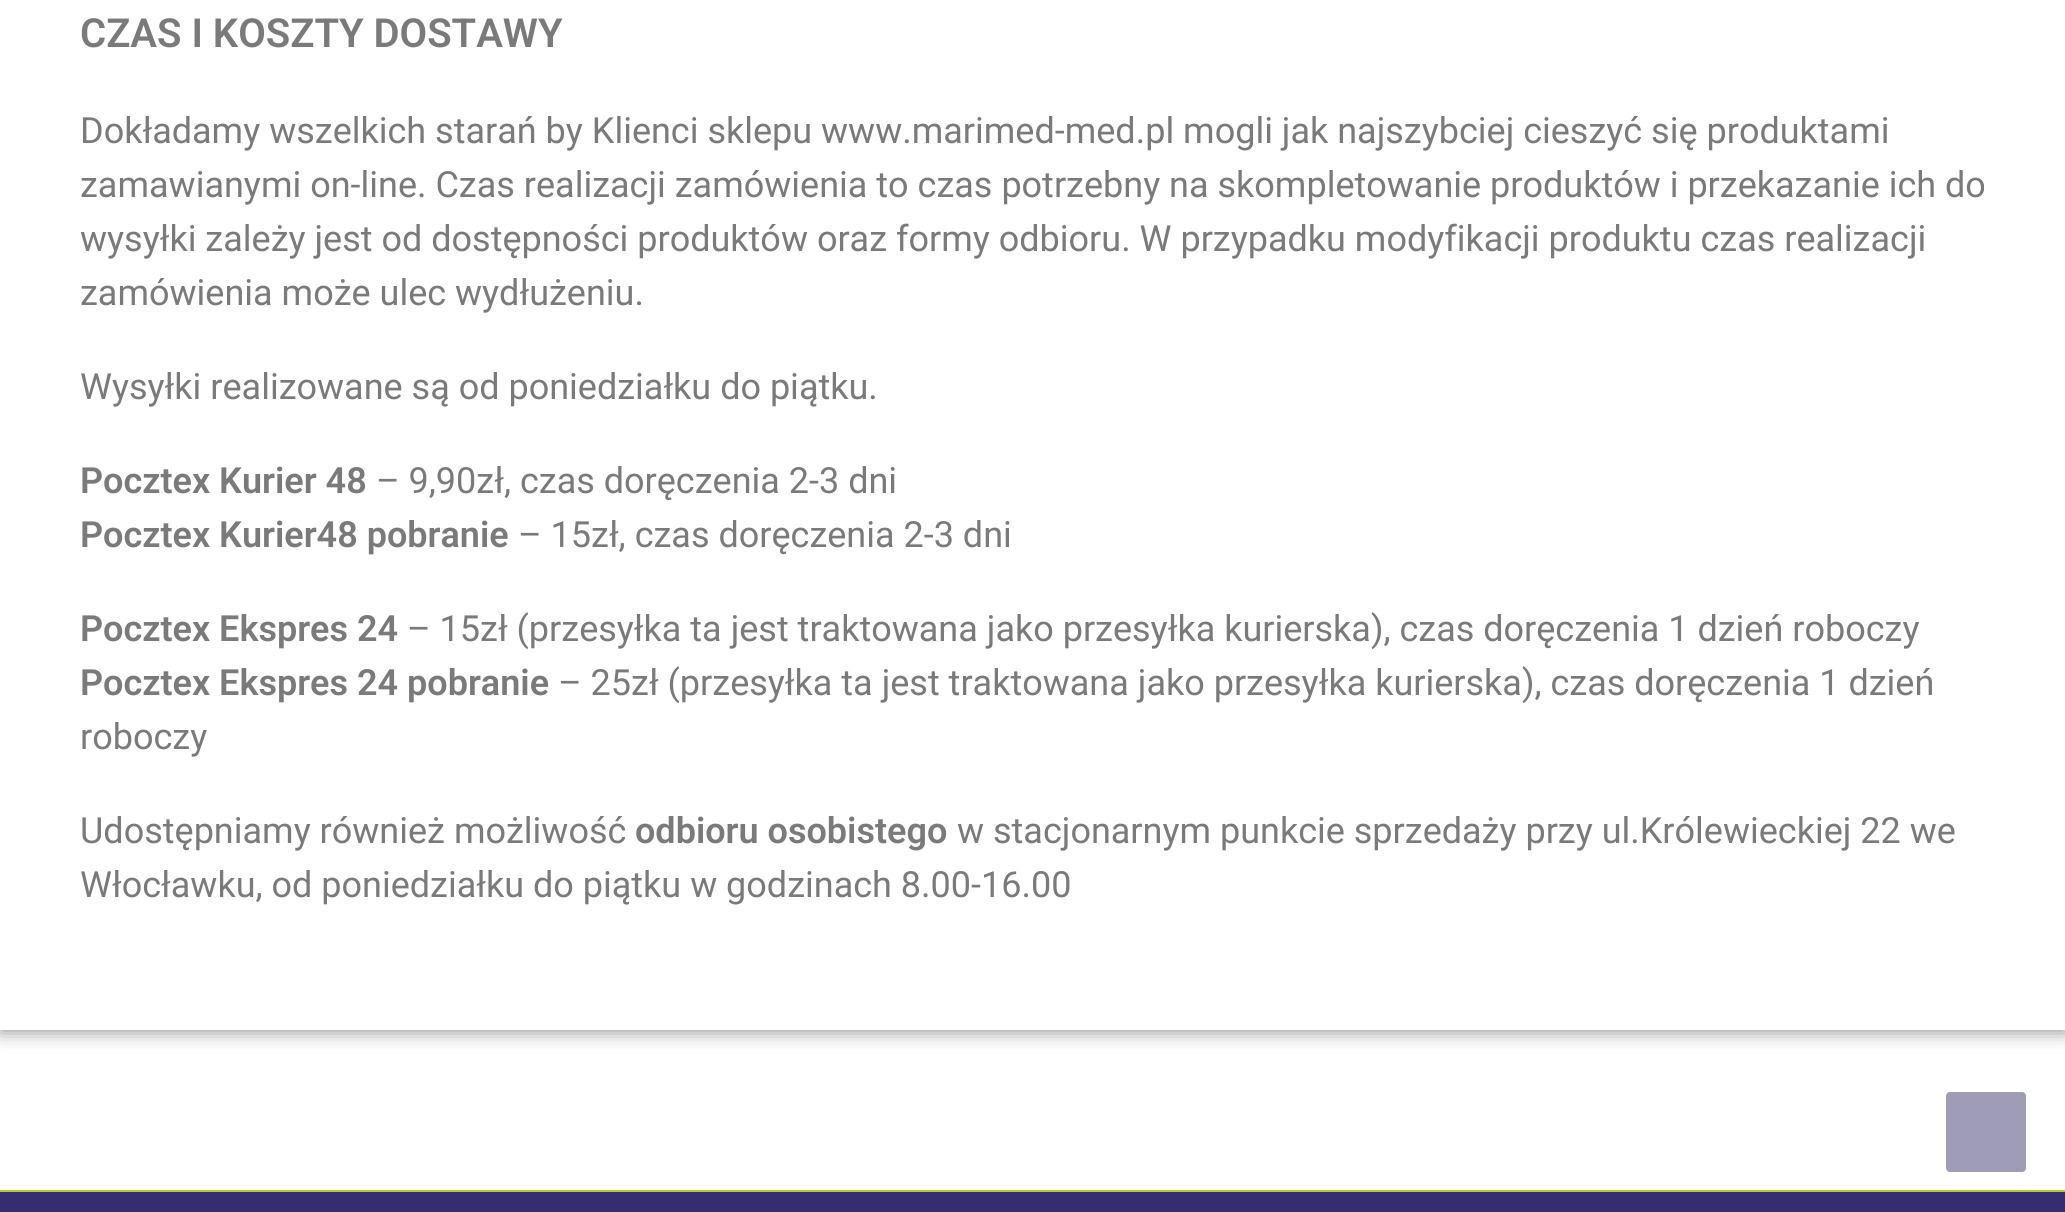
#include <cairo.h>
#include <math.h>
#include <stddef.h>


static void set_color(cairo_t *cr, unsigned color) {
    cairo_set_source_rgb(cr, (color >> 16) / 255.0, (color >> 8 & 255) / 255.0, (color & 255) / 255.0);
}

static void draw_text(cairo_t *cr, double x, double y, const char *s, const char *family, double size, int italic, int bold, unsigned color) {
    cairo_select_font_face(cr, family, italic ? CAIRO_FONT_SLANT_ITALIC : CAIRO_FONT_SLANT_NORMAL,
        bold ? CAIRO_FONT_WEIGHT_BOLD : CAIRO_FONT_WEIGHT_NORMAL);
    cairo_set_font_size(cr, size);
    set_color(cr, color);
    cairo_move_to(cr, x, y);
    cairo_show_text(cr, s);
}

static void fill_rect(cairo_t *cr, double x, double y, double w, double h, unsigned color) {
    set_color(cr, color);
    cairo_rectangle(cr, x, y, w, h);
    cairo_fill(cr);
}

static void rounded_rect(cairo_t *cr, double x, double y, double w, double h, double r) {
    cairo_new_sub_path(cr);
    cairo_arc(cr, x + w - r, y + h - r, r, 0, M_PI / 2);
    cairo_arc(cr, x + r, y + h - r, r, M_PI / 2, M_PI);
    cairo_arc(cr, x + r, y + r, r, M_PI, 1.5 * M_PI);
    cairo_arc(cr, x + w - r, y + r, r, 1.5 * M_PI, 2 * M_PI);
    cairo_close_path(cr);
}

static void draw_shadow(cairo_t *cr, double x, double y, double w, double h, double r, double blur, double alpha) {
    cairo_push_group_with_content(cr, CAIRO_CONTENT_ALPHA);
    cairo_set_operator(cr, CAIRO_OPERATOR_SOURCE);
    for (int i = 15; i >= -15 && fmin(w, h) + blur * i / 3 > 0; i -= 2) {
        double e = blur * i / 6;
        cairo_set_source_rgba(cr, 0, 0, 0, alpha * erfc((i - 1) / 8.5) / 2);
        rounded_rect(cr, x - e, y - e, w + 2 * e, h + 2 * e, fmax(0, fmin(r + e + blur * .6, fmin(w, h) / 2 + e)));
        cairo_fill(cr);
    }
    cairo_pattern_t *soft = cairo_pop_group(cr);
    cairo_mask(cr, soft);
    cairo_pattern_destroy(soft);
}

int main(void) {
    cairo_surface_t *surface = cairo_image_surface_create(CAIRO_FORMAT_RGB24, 2065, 1212);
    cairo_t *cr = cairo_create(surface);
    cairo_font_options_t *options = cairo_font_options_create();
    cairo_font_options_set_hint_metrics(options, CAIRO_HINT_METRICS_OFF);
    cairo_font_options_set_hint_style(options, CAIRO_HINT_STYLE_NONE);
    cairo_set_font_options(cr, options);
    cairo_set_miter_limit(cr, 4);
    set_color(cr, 0xFFFFFF);
    cairo_paint(cr);
    set_color(cr, 0x000000);
    draw_shadow(cr, 0, -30, 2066, 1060, 0, 10, 0.5);
    fill_rect(cr, 0, 0, 2065, 1030, 0xFFFFFF);
    draw_text(cr, 80, 47, "CZAS I KOSZTY DOSTAWY", "Roboto SemiBold", 40, 0, 0, 0x7A7A7A);
    draw_text(cr, 80, 143, "Dokładamy wszelkich starań by Klienci sklepu www.marimed-med.pl mogli jak najszybciej cieszyć się produktami", "Roboto", 36, 0, 0, 0x7A7A7A);
    draw_text(cr, 80, 197, "zamawianymi on-line. Czas realizacji zamówienia to czas potrzebny na skompletowanie produktów i przekazanie ich do", "Roboto", 36, 0, 0, 0x7A7A7A);
    draw_text(cr, 80, 251, "wysyłki zależy jest od dostępności produktów oraz formy odbioru. W przypadku modyfikacji produktu czas realizacji", "Roboto", 36, 0, 0, 0x7A7A7A);
    draw_text(cr, 80, 305, "zamówienia może ulec wydłużeniu.", "Roboto", 36, 0, 0, 0x7A7A7A);
    draw_text(cr, 80, 399, "Wysyłki realizowane są od poniedziałku do piątku.", "Roboto", 36, 0, 0, 0x7A7A7A);
    draw_text(cr, 80, 493, "Pocztex Kurier 48", "Roboto SemiBold", 36, 0, 0, 0x7A7A7A);
    draw_text(cr, 376, 493, "– 9,90zł, czas doręczenia 2-3 dni", "Roboto", 36, 0, 0, 0x7A7A7A);
    draw_text(cr, 80, 547, "Pocztex Kurier48 pobranie", "Roboto SemiBold", 36, 0, 0, 0x7A7A7A);
    draw_text(cr, 518, 547, "– 15zł, czas doręczenia 2-3 dni", "Roboto", 36, 0, 0, 0x7A7A7A);
    draw_text(cr, 80, 641, "Pocztex Ekspres 24", "Roboto SemiBold", 36, 0, 0, 0x7A7A7A);
    draw_text(cr, 407, 641, "– 15zł (przesyłka ta jest traktowana jako przesyłka kurierska), czas doręczenia 1 dzień roboczy", "Roboto", 36, 0, 0, 0x7A7A7A);
    draw_text(cr, 80, 695, "Pocztex Ekspres 24 pobranie", "Roboto SemiBold", 36, 0, 0, 0x7A7A7A);
    draw_text(cr, 558, 695, "– 25zł (przesyłka ta jest traktowana jako przesyłka kurierska), czas doręczenia 1 dzień", "Roboto", 36, 0, 0, 0x7A7A7A);
    draw_text(cr, 80, 749, "roboczy", "Roboto", 36, 0, 0, 0x7A7A7A);
    draw_text(cr, 80, 843, "Udostępniamy również możliwość", "Roboto", 36, 0, 0, 0x7A7A7A);
    draw_text(cr, 635, 843, "odbioru osobistego", "Roboto SemiBold", 36, 0, 0, 0x7A7A7A);
    draw_text(cr, 957, 843, "w stacjonarnym punkcie sprzedaży przy ul.Królewieckiej 22 we", "Roboto", 36, 0, 0, 0x7A7A7A);
    draw_text(cr, 80, 897, "Włocławku, od poniedziałku do piątku w godzinach 8.00-16.00", "Roboto", 36, 0, 0, 0x7A7A7A);
    fill_rect(cr, 0, 1192, 2065, 20, 0x362D70);
    fill_rect(cr, 0, 1190, 2065, 2, 0xB0CA28);
    set_color(cr, 0x9E9CB6);
    rounded_rect(cr, 1946, 1092, 80, 80, 4);
    cairo_fill(cr);
    cairo_surface_write_to_png(surface, "output.png");
    cairo_font_options_destroy(options);
    cairo_destroy(cr);
    cairo_surface_destroy(surface);
    return 0;
}
